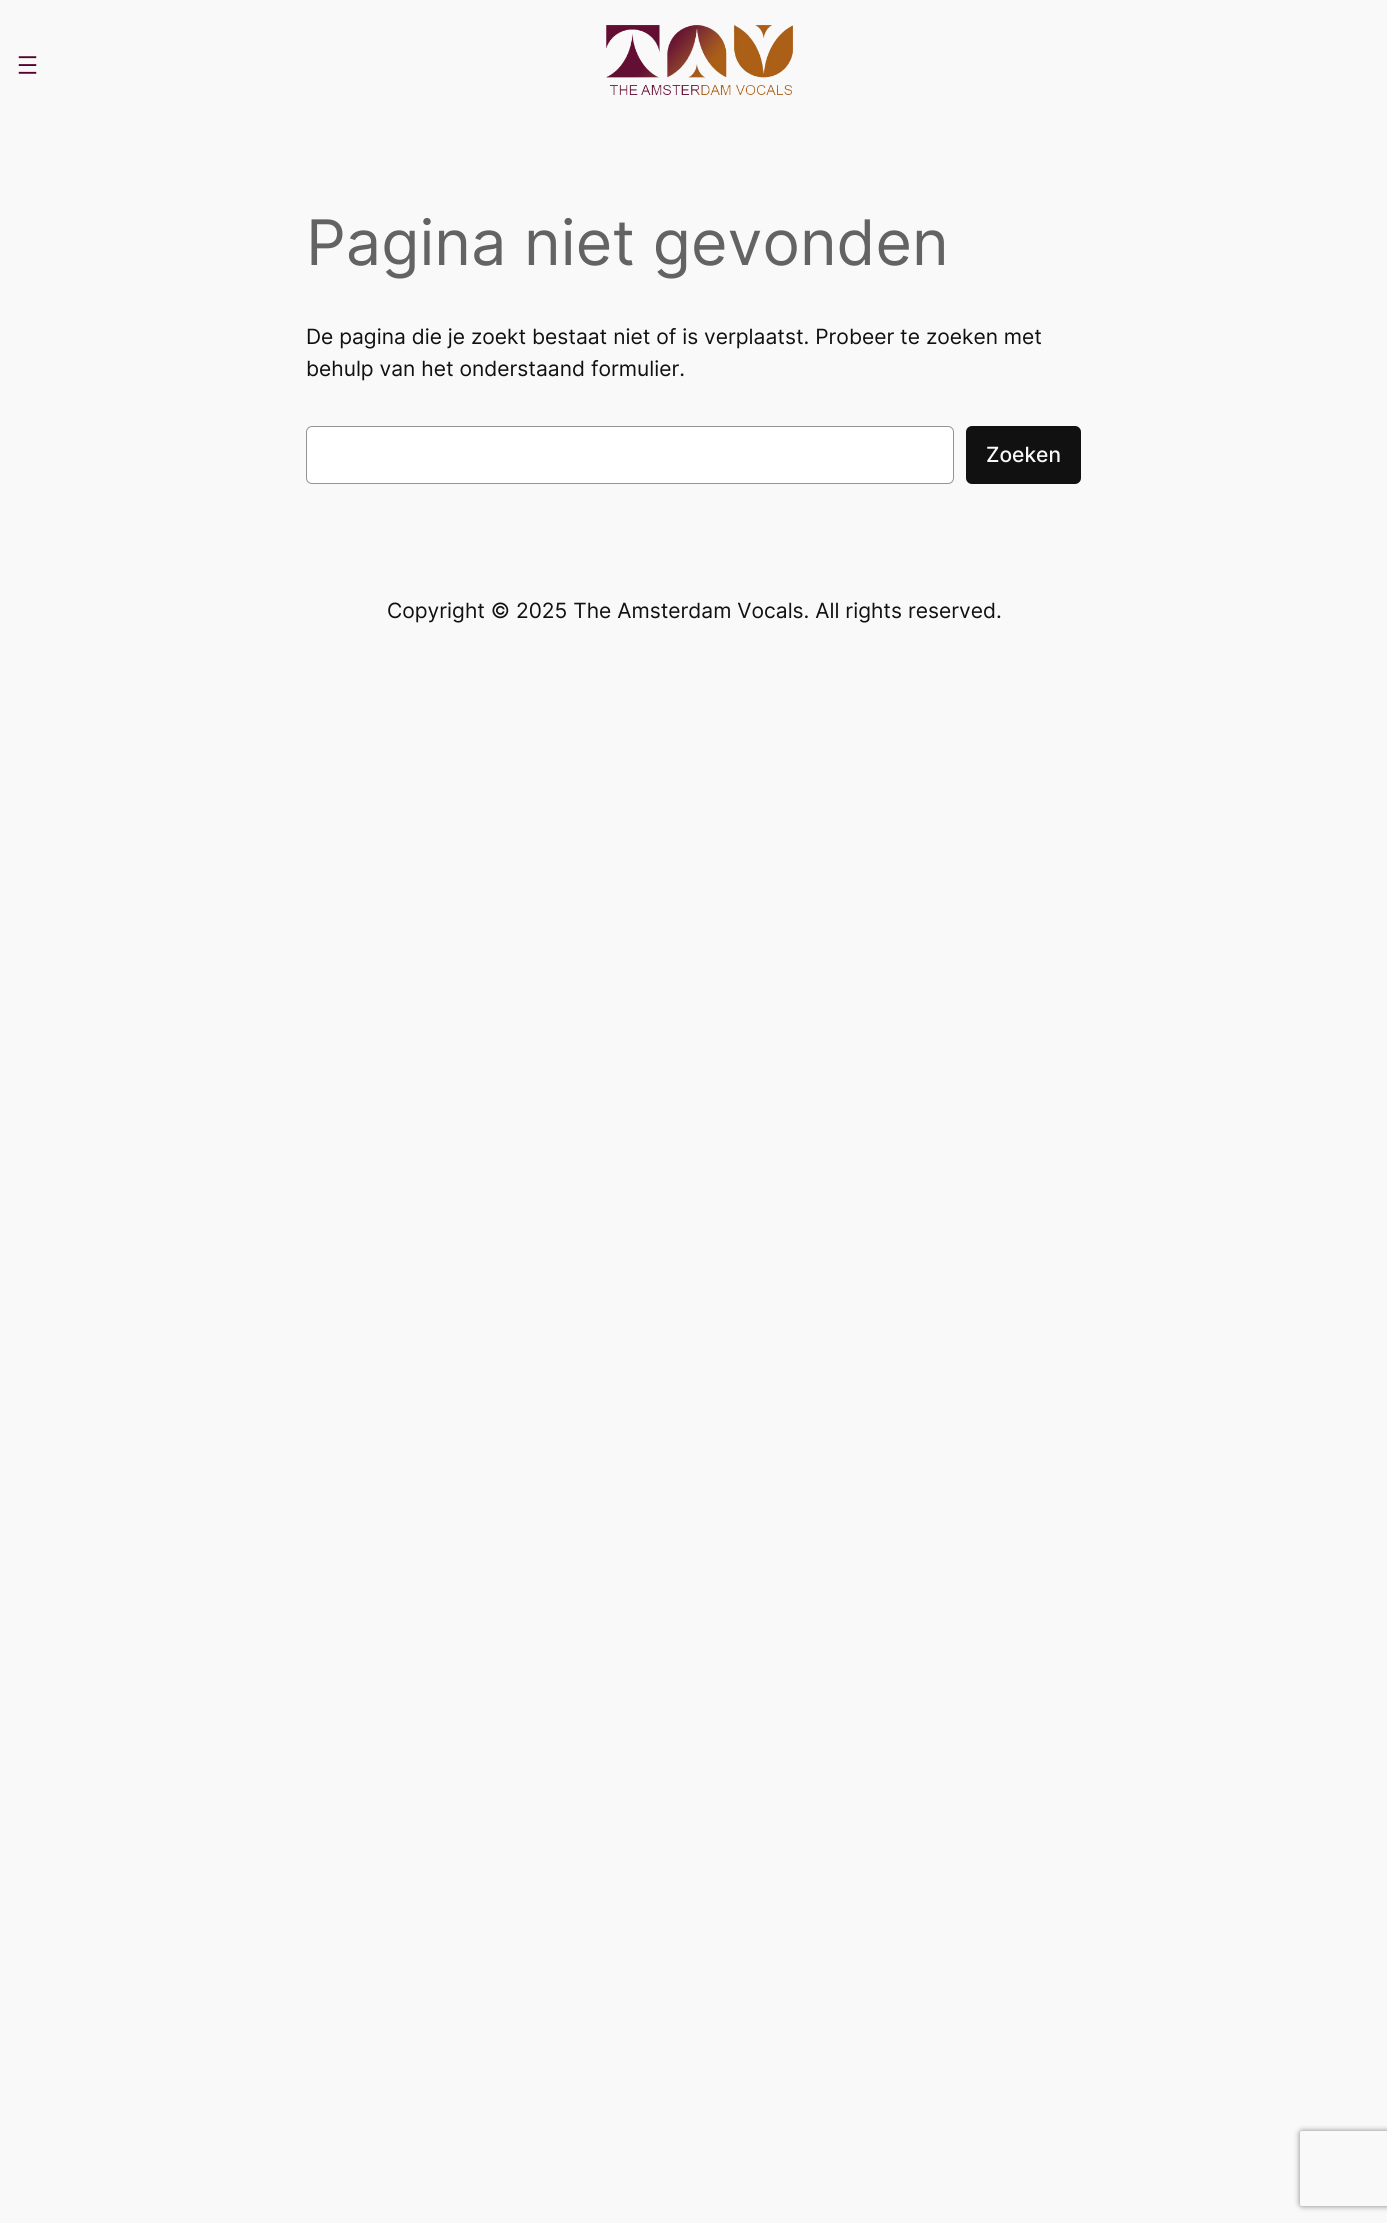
#include <cairo.h>
#include <math.h>
#include <stddef.h>


static void set_color(cairo_t *cr, unsigned color) {
    cairo_set_source_rgb(cr, (color >> 16) / 255.0, (color >> 8 & 255) / 255.0, (color & 255) / 255.0);
}

static void draw_text(cairo_t *cr, double x, double y, const char *s, const char *family, double size, int italic, int bold, unsigned color) {
    cairo_select_font_face(cr, family, italic ? CAIRO_FONT_SLANT_ITALIC : CAIRO_FONT_SLANT_NORMAL,
        bold ? CAIRO_FONT_WEIGHT_BOLD : CAIRO_FONT_WEIGHT_NORMAL);
    cairo_set_font_size(cr, size);
    set_color(cr, color);
    cairo_move_to(cr, x, y);
    cairo_show_text(cr, s);
}

static void rounded_rect(cairo_t *cr, double x, double y, double w, double h, double r) {
    cairo_new_sub_path(cr);
    cairo_arc(cr, x + w - r, y + h - r, r, 0, M_PI / 2);
    cairo_arc(cr, x + r, y + h - r, r, M_PI / 2, M_PI);
    cairo_arc(cr, x + r, y + r, r, M_PI, 1.5 * M_PI);
    cairo_arc(cr, x + w - r, y + r, r, 1.5 * M_PI, 2 * M_PI);
    cairo_close_path(cr);
}

static void draw_shadow(cairo_t *cr, double x, double y, double w, double h, double r, double blur, double alpha) {
    cairo_push_group_with_content(cr, CAIRO_CONTENT_ALPHA);
    cairo_set_operator(cr, CAIRO_OPERATOR_SOURCE);
    for (int i = 15; i >= -15 && fmin(w, h) + blur * i / 3 > 0; i -= 2) {
        double e = blur * i / 6;
        cairo_set_source_rgba(cr, 0, 0, 0, alpha * erfc((i - 1) / 8.5) / 2);
        rounded_rect(cr, x - e, y - e, w + 2 * e, h + 2 * e, fmax(0, fmin(r + e + blur * .6, fmin(w, h) / 2 + e)));
        cairo_fill(cr);
    }
    cairo_pattern_t *soft = cairo_pop_group(cr);
    cairo_mask(cr, soft);
    cairo_pattern_destroy(soft);
}

static void draw_image(cairo_t *cr, const char *path, double x, double y, double w, double h) {
    cairo_surface_t *image = cairo_image_surface_create_from_png(path);
    cairo_save(cr);
    cairo_set_source_surface(cr, image, x, y);
    cairo_rectangle(cr, x, y, w, h);
    cairo_fill(cr);
    cairo_restore(cr);
    cairo_surface_destroy(image);
}

int main(void) {
    cairo_surface_t *surface = cairo_image_surface_create(CAIRO_FORMAT_RGB24, 1387, 2223);
    cairo_t *cr = cairo_create(surface);
    cairo_font_options_t *options = cairo_font_options_create();
    cairo_font_options_set_hint_metrics(options, CAIRO_HINT_METRICS_OFF);
    cairo_font_options_set_hint_style(options, CAIRO_HINT_STYLE_NONE);
    cairo_set_font_options(cr, options);
    cairo_set_miter_limit(cr, 4);
    set_color(cr, 0xF9F9F9);
    cairo_paint(cr);
    draw_image(cr, "assets/img1.png", 18, 56, 19, 18);
    draw_image(cr, "assets/img2.png", 606, 25, 187, 70);
    draw_text(cr, 306, 265, "Pagina niet gevonden", "Inter", 62.75, 0, 0, 0x636363);
    draw_text(cr, 306, 344, "De pagina die je zoekt bestaat niet of is verplaatst. Probeer te zoeken met", "Inter", 21, 0, 0, 0x111111);
    draw_text(cr, 306, 376, "behulp van het onderstaand formulier.", "Inter", 21, 0, 0, 0x111111);
    set_color(cr, 0xFFFFFF);
    rounded_rect(cr, 306.5, 426.5, 647, 57, 5.5);
    cairo_fill_preserve(cr);
    set_color(cr, 0x949494);
    cairo_set_line_width(cr, 1);
    cairo_stroke(cr);
    set_color(cr, 0x111111);
    rounded_rect(cr, 966, 426, 115, 58, 6);
    cairo_fill(cr);
    draw_text(cr, 986, 462, "Zoeken", "Inter Medium", 21, 0, 0, 0xF9F9F9);
    draw_text(cr, 387, 618, "Copyright © 2025 The Amsterdam Vocals. All rights reserved.", "Inter", 21, 0, 0, 0x111111);
    cairo_save(cr);
    cairo_set_fill_rule(cr, CAIRO_FILL_RULE_EVEN_ODD);
    cairo_new_path(cr);
    cairo_move_to(cr, 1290, 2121);
    cairo_line_to(cr, 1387, 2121);
    cairo_line_to(cr, 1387, 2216);
    cairo_line_to(cr, 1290, 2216);
    cairo_close_path(cr);
    cairo_move_to(cr, 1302.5, 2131);
    cairo_line_to(cr, 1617.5, 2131);
    cairo_curve_to(cr, 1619, 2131, 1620, 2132, 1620, 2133.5);
    cairo_line_to(cr, 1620, 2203.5);
    cairo_curve_to(cr, 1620, 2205, 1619, 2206, 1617.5, 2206);
    cairo_line_to(cr, 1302.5, 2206);
    cairo_curve_to(cr, 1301, 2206, 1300, 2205, 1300, 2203.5);
    cairo_line_to(cr, 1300, 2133.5);
    cairo_curve_to(cr, 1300, 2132, 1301, 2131, 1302.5, 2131);
    cairo_close_path(cr);
    cairo_clip(cr);
    set_color(cr, 0x808080);
    draw_shadow(cr, 1300, 2131, 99, 75, 2.5, 3, 1);
    cairo_restore(cr);
    cairo_surface_write_to_png(surface, "output.png");
    cairo_font_options_destroy(options);
    cairo_destroy(cr);
    cairo_surface_destroy(surface);
    return 0;
}
